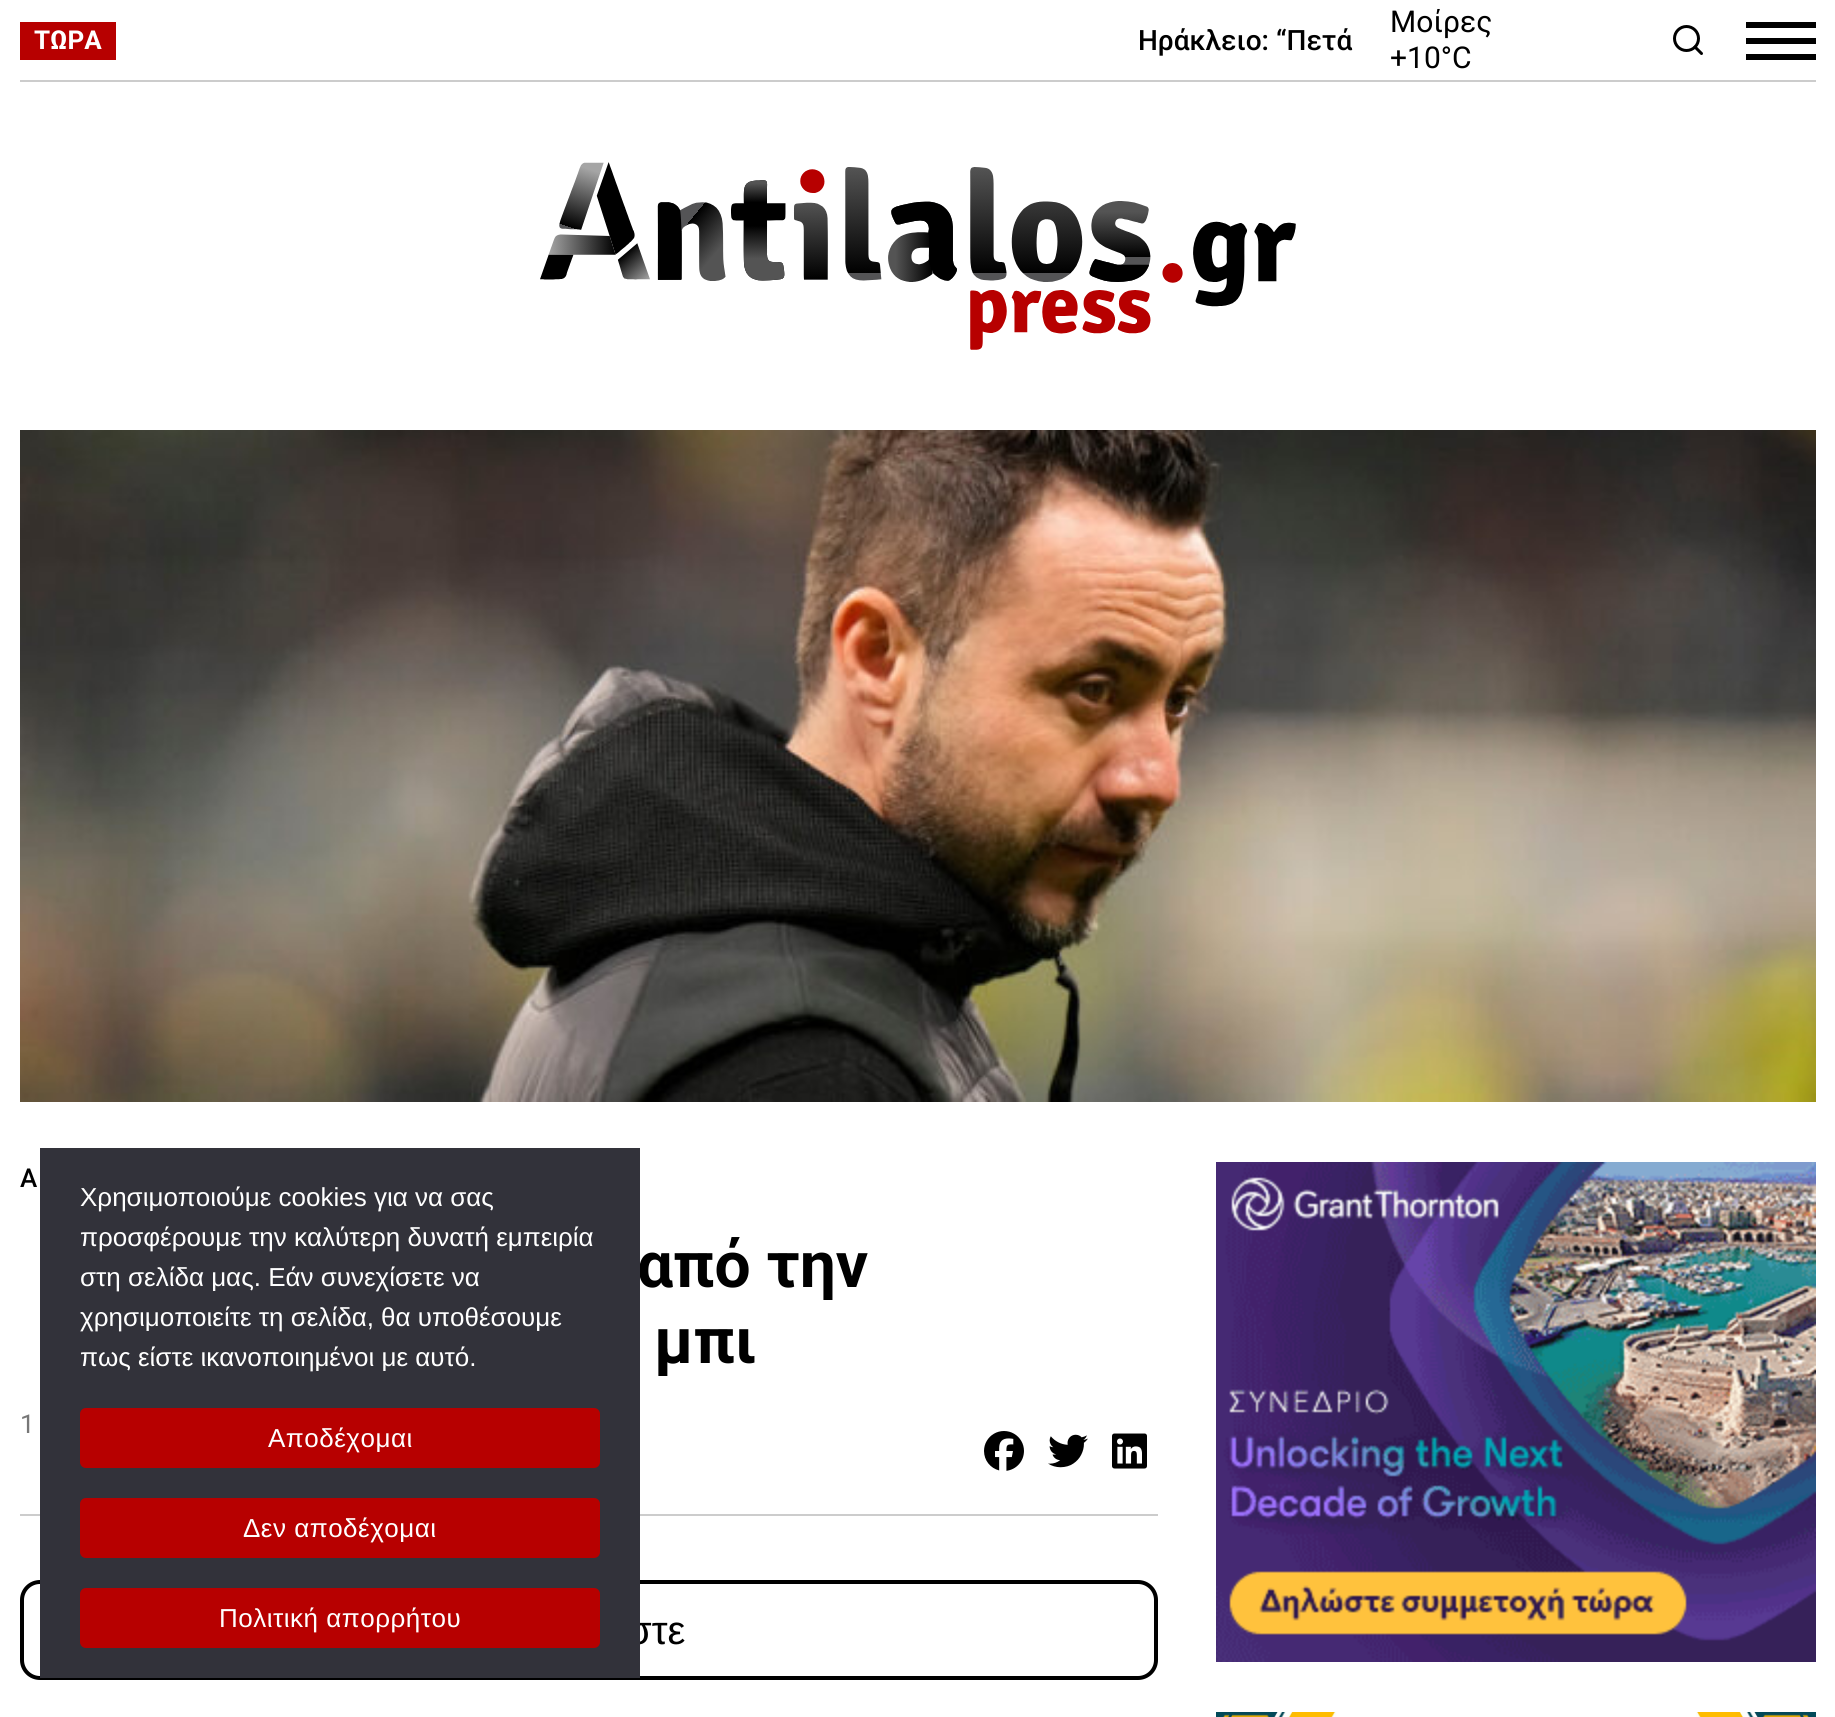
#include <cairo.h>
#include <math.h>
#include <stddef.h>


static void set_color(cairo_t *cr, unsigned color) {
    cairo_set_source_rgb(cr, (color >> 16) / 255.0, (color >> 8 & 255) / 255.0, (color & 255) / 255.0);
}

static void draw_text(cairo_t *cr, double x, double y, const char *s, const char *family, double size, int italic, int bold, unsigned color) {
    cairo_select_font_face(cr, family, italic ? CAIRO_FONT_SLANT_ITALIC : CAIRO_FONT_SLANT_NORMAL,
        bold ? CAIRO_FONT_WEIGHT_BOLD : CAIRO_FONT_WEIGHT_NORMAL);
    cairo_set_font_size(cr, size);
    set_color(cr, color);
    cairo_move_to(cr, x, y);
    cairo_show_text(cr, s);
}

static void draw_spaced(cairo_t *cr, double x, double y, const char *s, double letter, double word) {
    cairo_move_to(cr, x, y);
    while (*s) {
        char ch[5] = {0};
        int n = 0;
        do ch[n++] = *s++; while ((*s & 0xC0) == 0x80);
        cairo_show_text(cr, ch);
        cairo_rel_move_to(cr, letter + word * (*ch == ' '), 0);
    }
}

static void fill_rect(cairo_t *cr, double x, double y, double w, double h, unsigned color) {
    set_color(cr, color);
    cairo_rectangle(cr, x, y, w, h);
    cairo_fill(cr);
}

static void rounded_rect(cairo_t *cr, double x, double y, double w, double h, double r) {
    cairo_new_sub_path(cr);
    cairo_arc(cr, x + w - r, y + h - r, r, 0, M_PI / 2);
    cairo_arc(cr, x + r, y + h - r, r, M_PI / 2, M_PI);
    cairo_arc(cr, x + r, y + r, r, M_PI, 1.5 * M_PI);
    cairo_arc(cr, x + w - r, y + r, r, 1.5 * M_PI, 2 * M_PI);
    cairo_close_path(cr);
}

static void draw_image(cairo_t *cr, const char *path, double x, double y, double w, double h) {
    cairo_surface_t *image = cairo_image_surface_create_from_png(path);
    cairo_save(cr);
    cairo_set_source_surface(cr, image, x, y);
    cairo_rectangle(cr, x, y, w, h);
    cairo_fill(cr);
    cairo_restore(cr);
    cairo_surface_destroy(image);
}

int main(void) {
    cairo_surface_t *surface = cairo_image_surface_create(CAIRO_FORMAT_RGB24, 1835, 1717);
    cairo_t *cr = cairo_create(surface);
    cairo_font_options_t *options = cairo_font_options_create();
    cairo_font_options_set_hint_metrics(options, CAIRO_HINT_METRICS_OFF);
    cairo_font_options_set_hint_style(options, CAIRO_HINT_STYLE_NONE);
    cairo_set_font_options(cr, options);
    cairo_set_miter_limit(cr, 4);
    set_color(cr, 0xFFFFFF);
    cairo_paint(cr);
    fill_rect(cr, 20, 80, 1796, 2, 0xCCCCCC);
    fill_rect(cr, 20, 22, 96, 38, 0xB70000);
    draw_text(cr, 34, 49, "ΤΩΡΑ", "Roboto", 26, 0, 1, 0xFFFFFF);
    draw_text(cr, 1138, 50, "Ηράκλειο: “Πετά", "Roboto Medium", 28, 0, 0, 0x000000);
    draw_text(cr, 1390, 32, "Μοίρες", "Roboto", 30, 0, 0, 0x000000);
    draw_text(cr, 1390, 68, "+10°C", "Roboto", 30, 0, 0, 0x000000);
    cairo_new_path(cr);
    cairo_arc(cr, 1686.5, 38.5, 12, 0, 2 * M_PI);
    cairo_set_line_width(cr, 3);
    cairo_stroke(cr);
    cairo_new_path(cr);
    cairo_move_to(cr, 1701.5, 53.5);
    cairo_line_to(cr, 1695, 47);
    cairo_set_line_cap(cr, CAIRO_LINE_CAP_ROUND);
    cairo_set_line_join(cr, CAIRO_LINE_JOIN_ROUND);
    cairo_stroke(cr);
    fill_rect(cr, 1746, 22, 70, 6, 0x000000);
    fill_rect(cr, 1746, 38, 70, 6, 0x000000);
    fill_rect(cr, 1746, 54, 70, 6, 0x000000);
    draw_image(cr, "assets/img1.png", 540, 162, 756, 188);
    draw_image(cr, "assets/img2.png", 20, 430, 1796, 672);
    fill_rect(cr, 20, 1514, 1138, 2, 0xCCCCCC);
    draw_text(cr, 20, 1187, "Α", "Roboto Medium", 26, 0, 0, 0x000000);
    draw_text(cr, 637, 1287, "από την", "Roboto", 64, 0, 1, 0x000000);
    draw_text(cr, 654, 1363, "μπι", "Roboto", 64, 0, 1, 0x000000);
    draw_text(cr, 20, 1433, "1", "Roboto", 26, 0, 0, 0x777777);
    draw_image(cr, "assets/img3.png", 984, 1431, 40, 40);
    draw_image(cr, "assets/img4.png", 1048, 1434, 40, 34);
    draw_image(cr, "assets/img5.png", 1112, 1433, 35, 36);
    rounded_rect(cr, 22, 1582, 1134, 96, 18);
    set_color(cr, 0x000000);
    cairo_set_line_width(cr, 4);
    cairo_set_line_cap(cr, CAIRO_LINE_CAP_BUTT);
    cairo_set_line_join(cr, CAIRO_LINE_JOIN_MITER);
    cairo_stroke(cr);
    draw_text(cr, 627, 1644, "στε", "Liberation Sans", 40, 0, 0, 0x000000);
    draw_image(cr, "assets/img6.png", 1216, 1162, 600, 500);
    draw_image(cr, "assets/img7.png", 1216, 1712, 600, 5);
    fill_rect(cr, 40, 1148, 600, 530, 0x32323A);
    draw_text(cr, 80, 1206, "Χρησιμοποιούμε cookies για να σας", "Liberation Sans", 26, 0, 0, 0xFFFFFF);
    draw_text(cr, 80, 1246, "προσφέρουμε την καλύτερη δυνατή εμπειρία", "Liberation Sans", 26, 0, 0, 0xFFFFFF);
    draw_text(cr, 80, 1286, "στη σελίδα μας. Εάν συνεχίσετε να", "Liberation Sans", 26, 0, 0, 0xFFFFFF);
    draw_text(cr, 80, 1326, "χρησιμοποιείτε τη σελίδα, θα υποθέσουμε", "Liberation Sans", 26, 0, 0, 0xFFFFFF);
    draw_text(cr, 80, 1366, "πως είστε ικανοποιημένοι με αυτό.", "Liberation Sans", 26, 0, 0, 0xFFFFFF);
    set_color(cr, 0xB70000);
    rounded_rect(cr, 80, 1408, 520, 60, 6);
    cairo_fill(cr);
    set_color(cr, 0xFFFFFF);
    draw_spaced(cr, 268, 1447, "Αποδέχομαι", 0.5, 0);
    set_color(cr, 0xB70000);
    rounded_rect(cr, 80, 1498, 520, 60, 6);
    cairo_fill(cr);
    set_color(cr, 0xFFFFFF);
    draw_spaced(cr, 243, 1537, "Δεν αποδέχομαι", 0.5, 0);
    set_color(cr, 0xB70000);
    rounded_rect(cr, 80, 1588, 520, 60, 6);
    cairo_fill(cr);
    set_color(cr, 0xFFFFFF);
    draw_spaced(cr, 219, 1627, "Πολιτική απορρήτου", 0.5, 0);
    cairo_surface_write_to_png(surface, "output.png");
    cairo_font_options_destroy(options);
    cairo_destroy(cr);
    cairo_surface_destroy(surface);
    return 0;
}
